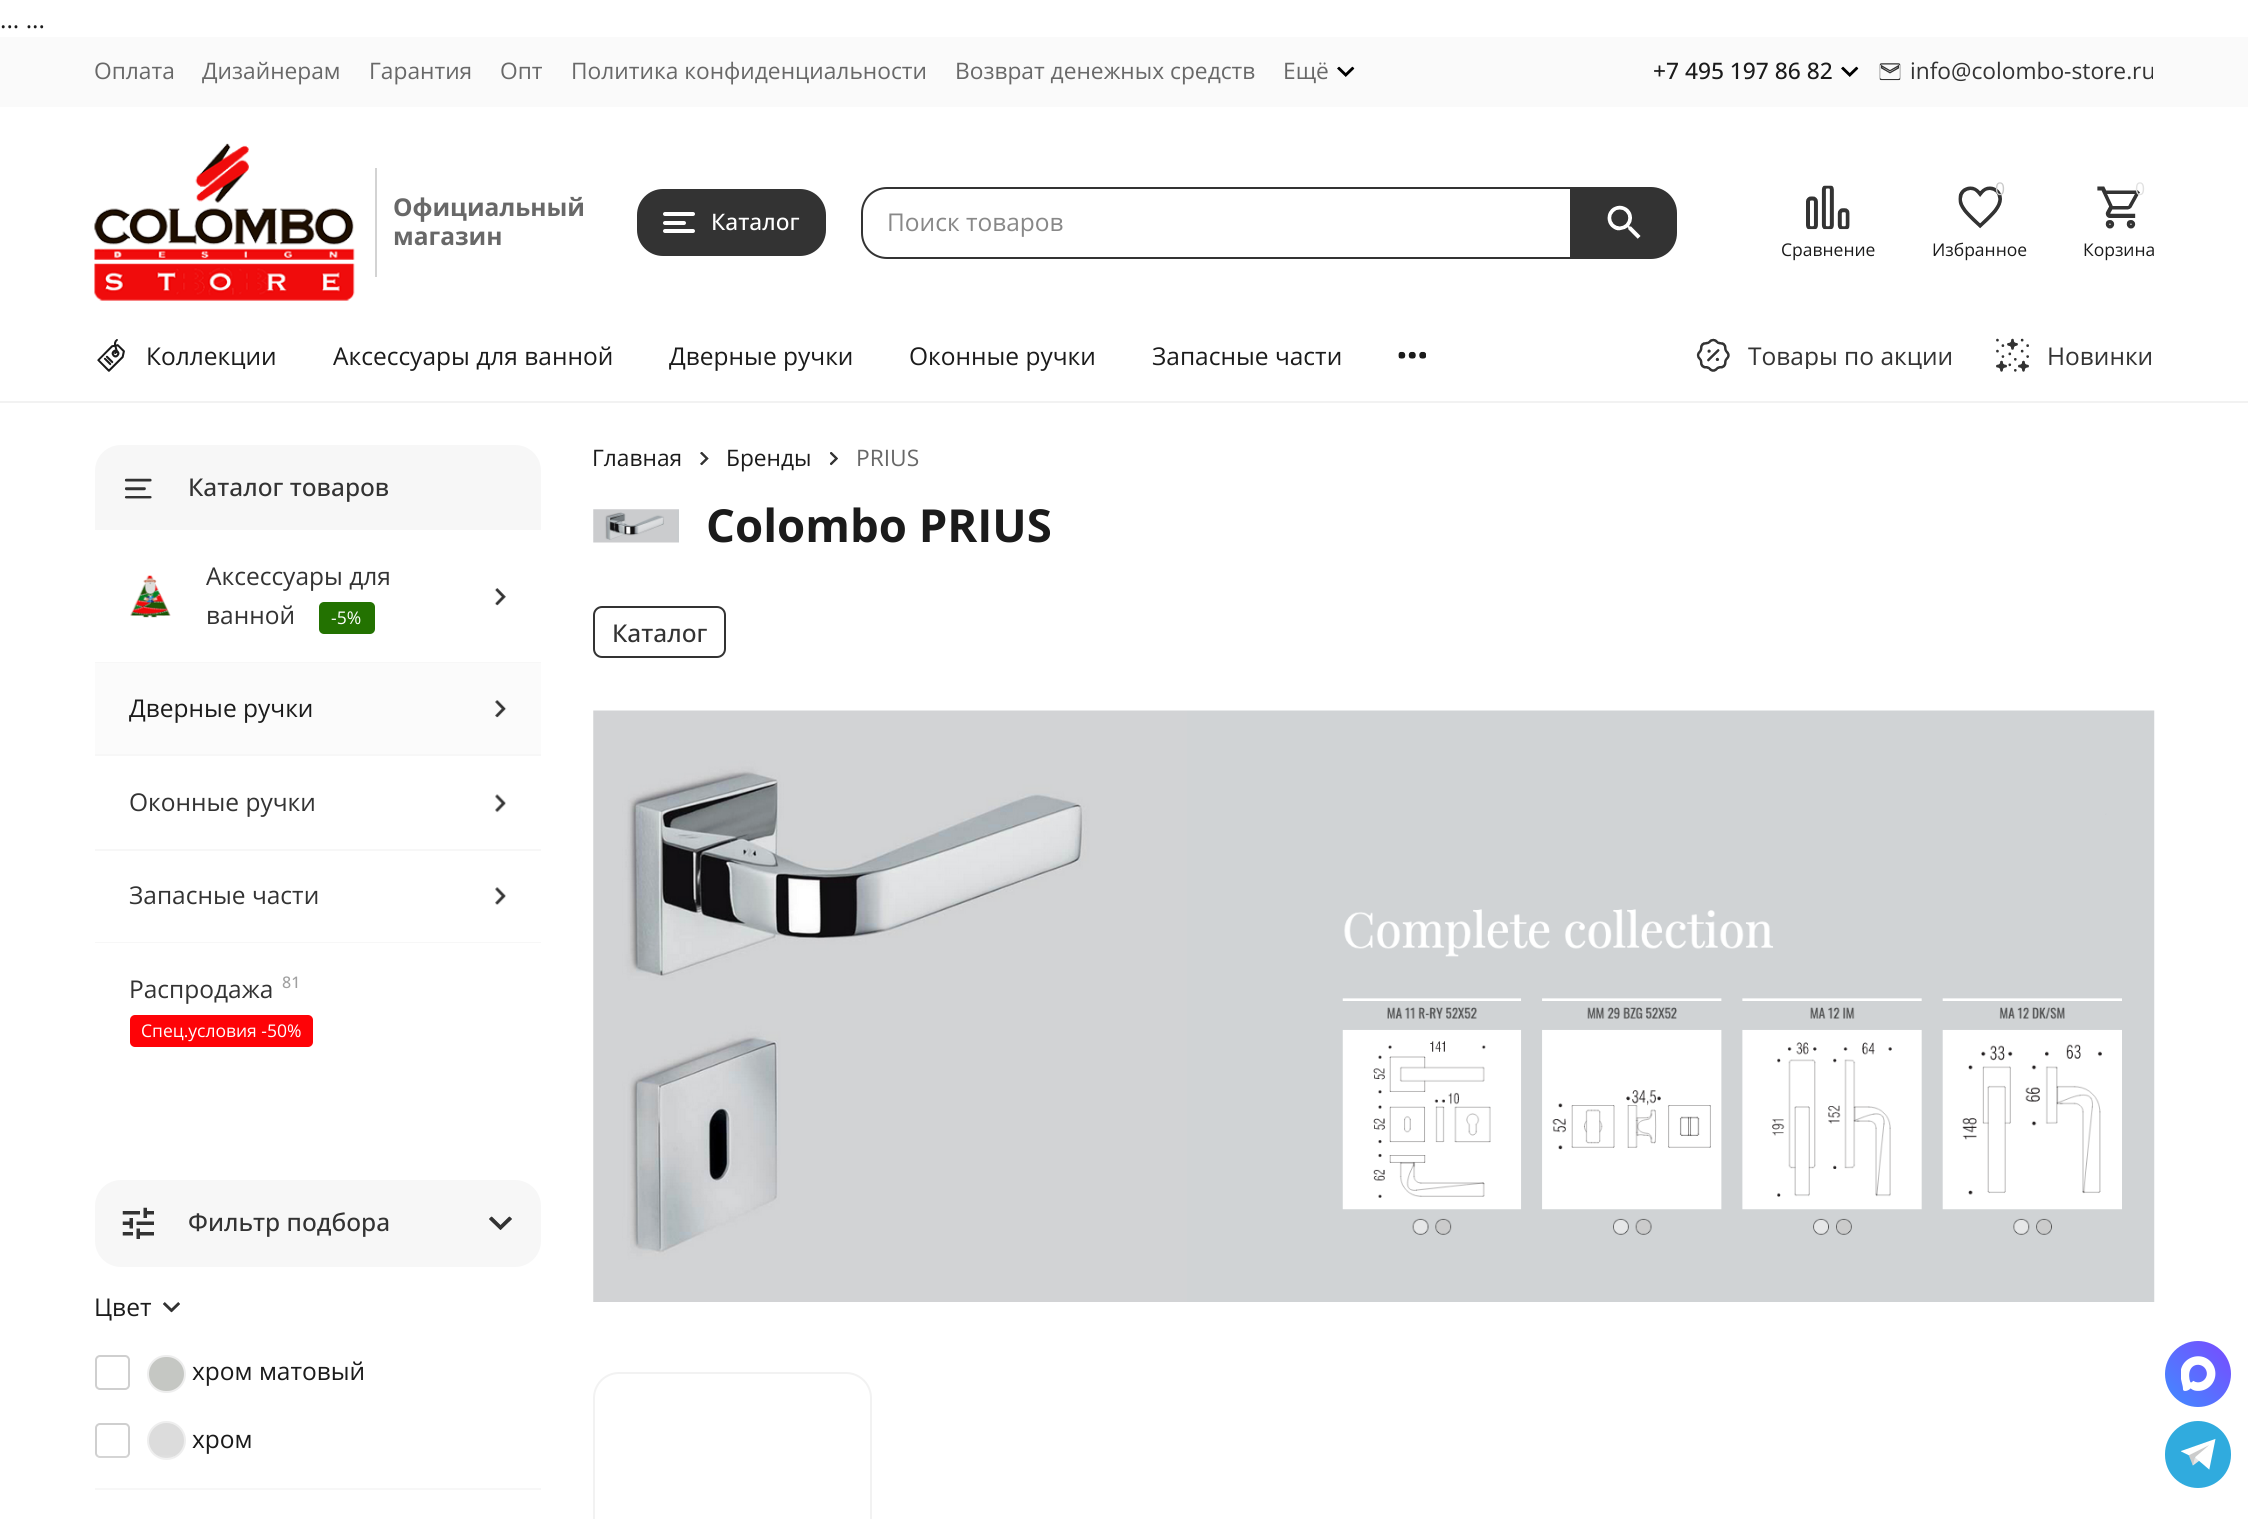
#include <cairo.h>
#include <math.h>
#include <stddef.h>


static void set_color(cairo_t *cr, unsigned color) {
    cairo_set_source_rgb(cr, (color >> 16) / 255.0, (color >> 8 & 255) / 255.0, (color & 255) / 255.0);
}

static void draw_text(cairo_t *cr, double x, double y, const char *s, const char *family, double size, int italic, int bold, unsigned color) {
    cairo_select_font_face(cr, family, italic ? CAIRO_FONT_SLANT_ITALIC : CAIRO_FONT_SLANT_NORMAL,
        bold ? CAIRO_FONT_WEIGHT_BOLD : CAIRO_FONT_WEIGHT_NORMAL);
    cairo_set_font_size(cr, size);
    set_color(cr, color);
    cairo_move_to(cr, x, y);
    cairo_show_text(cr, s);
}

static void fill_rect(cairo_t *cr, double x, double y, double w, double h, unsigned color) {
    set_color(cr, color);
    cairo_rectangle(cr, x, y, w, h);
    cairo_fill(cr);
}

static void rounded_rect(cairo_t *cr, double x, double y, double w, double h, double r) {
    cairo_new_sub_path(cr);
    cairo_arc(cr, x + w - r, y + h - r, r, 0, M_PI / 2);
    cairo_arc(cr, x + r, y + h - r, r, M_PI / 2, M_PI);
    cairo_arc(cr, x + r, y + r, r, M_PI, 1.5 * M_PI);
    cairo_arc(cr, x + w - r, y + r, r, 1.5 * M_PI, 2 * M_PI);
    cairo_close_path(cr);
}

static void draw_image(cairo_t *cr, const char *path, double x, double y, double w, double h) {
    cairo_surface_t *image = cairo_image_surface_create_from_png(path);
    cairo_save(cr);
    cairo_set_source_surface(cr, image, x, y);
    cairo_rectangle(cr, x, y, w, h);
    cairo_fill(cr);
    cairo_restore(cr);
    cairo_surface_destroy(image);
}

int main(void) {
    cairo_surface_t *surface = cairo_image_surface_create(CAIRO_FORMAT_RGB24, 2248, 1519);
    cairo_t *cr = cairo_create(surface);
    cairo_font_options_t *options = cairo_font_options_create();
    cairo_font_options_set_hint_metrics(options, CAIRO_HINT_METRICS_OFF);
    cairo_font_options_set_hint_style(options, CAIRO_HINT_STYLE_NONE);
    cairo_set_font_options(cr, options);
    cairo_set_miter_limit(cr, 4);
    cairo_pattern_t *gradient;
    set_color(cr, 0xFFFFFF);
    cairo_paint(cr);
    draw_text(cr, 0, 28, "... ...", "Open Sans", 24.5, 0, 0, 0x1B1B1B);
    fill_rect(cr, 0, 401, 2248, 2, 0xF2F2F2);
    fill_rect(cr, 0, 37, 2248, 70, 0xFAFAFA);
    draw_text(cr, 94, 79, "Оплата", "Open Sans", 22.75, 0, 0, 0x686868);
    draw_text(cr, 202, 79, "Дизайнерам", "Open Sans", 22.75, 0, 0, 0x686868);
    draw_text(cr, 369, 79, "Гарантия", "Open Sans", 22.75, 0, 0, 0x686868);
    draw_text(cr, 500, 79, "Опт", "Open Sans", 22.75, 0, 0, 0x686868);
    draw_text(cr, 571, 79, "Политика конфиденциальности", "Open Sans", 22.75, 0, 0, 0x686868);
    draw_text(cr, 955, 79, "Возврат денежных средств", "Open Sans", 22.75, 0, 0, 0x686868);
    draw_text(cr, 1283, 79, "Ещё", "Open Sans", 22.75, 0, 0, 0x686868);
    draw_image(cr, "assets/img1.png", 1337, 66, 18, 11);
    draw_text(cr, 1653, 79, "+7 495 197 86 82", "Open Sans Medium", 22.75, 0, 0, 0x1B1B1B);
    draw_image(cr, "assets/img1.png", 1841, 66, 18, 11);
    draw_image(cr, "assets/img2.png", 1879, 63, 22, 18);
    draw_text(cr, 1910, 79, "info@colombo-store.ru", "Open Sans", 22.75, 0, 0, 0x333333);
    draw_image(cr, "assets/img3.png", 94, 143, 261, 158);
    fill_rect(cr, 375, 168, 2, 109, 0xD3D3D3);
    draw_text(cr, 393, 216, "Официальный", "Open Sans", 24.5, 0, 1, 0x686868);
    draw_text(cr, 393, 245, "магазин", "Open Sans", 24.5, 0, 1, 0x686868);
    set_color(cr, 0x333333);
    rounded_rect(cr, 637, 189, 189, 67, 26);
    cairo_fill(cr);
    set_color(cr, 0xFFFFFF);
    rounded_rect(cr, 663, 212, 32, 4, 2);
    cairo_fill(cr);
    rounded_rect(cr, 663, 221, 23, 4, 2);
    cairo_fill(cr);
    rounded_rect(cr, 663, 229, 32, 4, 2);
    cairo_fill(cr);
    draw_text(cr, 711, 230, "Каталог", "Open Sans Medium", 22.75, 0, 0, 0xFFFFFF);
    cairo_new_path(cr);
    cairo_move_to(cr, 887, 188);
    cairo_line_to(cr, 1571, 188);
    cairo_line_to(cr, 1571, 258);
    cairo_line_to(cr, 887, 258);
    cairo_curve_to(cr, 873, 258, 862, 247, 862, 233);
    cairo_line_to(cr, 862, 213);
    cairo_curve_to(cr, 862, 199, 873, 188, 887, 188);
    cairo_close_path(cr);
    set_color(cr, 0x333333);
    cairo_stroke(cr);
    draw_text(cr, 887, 231, "Поиск товаров", "Open Sans", 24.5, 0, 0, 0x888888);
    set_color(cr, 0x333333);
    cairo_new_path(cr);
    cairo_move_to(cr, 1572, 187);
    cairo_line_to(cr, 1651, 187);
    cairo_curve_to(cr, 1665.5, 187, 1677, 198.5, 1677, 213);
    cairo_line_to(cr, 1677, 233);
    cairo_curve_to(cr, 1677, 247.5, 1665.5, 259, 1651, 259);
    cairo_line_to(cr, 1572, 259);
    cairo_close_path(cr);
    cairo_fill(cr);
    draw_image(cr, "assets/img4.png", 1607, 205, 34, 34);
    draw_image(cr, "assets/img5.png", 1806, 185, 44, 45);
    draw_text(cr, 1781, 256, "Сравнение", "Open Sans", 17.5, 0, 0, 0x1B1B1B);
    draw_image(cr, "assets/img6.png", 1958, 186, 44, 43);
    draw_text(cr, 1995, 195, "0", "Open Sans", 17.5, 0, 0, 0xC9C9C9);
    draw_text(cr, 1932, 256, "Избранное", "Open Sans", 17.5, 0, 0, 0x1B1B1B);
    draw_image(cr, "assets/img7.png", 2097, 186, 43, 43);
    draw_text(cr, 2135, 195, "0", "Open Sans", 17.5, 0, 0, 0xE1E1E1);
    draw_text(cr, 2083, 256, "Корзина", "Open Sans", 17.5, 0, 0, 0x1B1B1B);
    draw_image(cr, "assets/img8.png", 97, 339, 28, 33);
    cairo_save(cr);
    cairo_rectangle(cr, 147, 341, 130, 28);
    cairo_clip(cr);
    draw_text(cr, 146, 365, "Коллекции", "Open Sans", 24.5, 0, 0, 0x1B1B1B);
    cairo_restore(cr);
    draw_text(cr, 333, 365, "Аксессуары для ванной", "Open Sans", 24.5, 0, 0, 0x1B1B1B);
    draw_text(cr, 669, 365, "Дверные ручки", "Open Sans", 24.5, 0, 0, 0x1B1B1B);
    draw_text(cr, 909, 365, "Оконные ручки", "Open Sans", 24.5, 0, 0, 0x1B1B1B);
    draw_text(cr, 1152, 365, "Запасные части", "Open Sans", 24.5, 0, 0, 0x1B1B1B);
    draw_image(cr, "assets/img9.png", 1398, 351, 28, 8);
    draw_image(cr, "assets/img10.png", 1696, 338, 34, 34);
    cairo_save(cr);
    cairo_rectangle(cr, 1748, 341, 205, 28);
    cairo_clip(cr);
    draw_text(cr, 1748, 365, "Товары по акции", "Open Sans", 24.5, 0, 0, 0x333333);
    cairo_restore(cr);
    draw_image(cr, "assets/img11.png", 1996, 338, 33, 34);
    draw_text(cr, 2047, 365, "Новинки", "Open Sans", 24.5, 0, 0, 0x333333);
    set_color(cr, 0xF7F7F7);
    cairo_new_path(cr);
    cairo_move_to(cr, 121, 445);
    cairo_line_to(cr, 515, 445);
    cairo_curve_to(cr, 529.5, 445, 541, 456.5, 541, 471);
    cairo_line_to(cr, 541, 530);
    cairo_line_to(cr, 95, 530);
    cairo_line_to(cr, 95, 471);
    cairo_curve_to(cr, 95, 456.5, 106.5, 445, 121, 445);
    cairo_close_path(cr);
    cairo_fill(cr);
    draw_image(cr, "assets/img12.png", 124, 478, 28, 21);
    draw_text(cr, 188, 496, "Каталог товаров", "Open Sans Medium", 24.5, 0, 0, 0x333333);
    fill_rect(cr, 95, 662, 446, 1, 0xF7F7F7);
    draw_image(cr, "assets/img13.png", 130, 575, 41, 43);
    draw_text(cr, 206, 585, "Аксессуары для", "Open Sans", 24.5, 0, 0, 0x333333);
    draw_text(cr, 206, 624, "ванной", "Open Sans", 24.5, 0, 0, 0x333333);
    set_color(cr, 0x237201);
    rounded_rect(cr, 319, 602, 56, 32, 5);
    cairo_fill(cr);
    draw_text(cr, 331, 624, "-5%", "Open Sans", 17.5, 0, 0, 0xFFFFFF);
    draw_image(cr, "assets/img14.png", 494, 588, 12, 18);
    fill_rect(cr, 95, 754, 446, 2, 0xF7F7F7);
    fill_rect(cr, 95, 663, 446, 91, 0xFBFBFB);
    draw_text(cr, 129, 717, "Дверные ручки", "Open Sans", 24.5, 0, 0, 0x1B1B1B);
    draw_image(cr, "assets/img15.png", 495, 700, 12, 18);
    fill_rect(cr, 95, 849, 446, 2, 0xF7F7F7);
    draw_text(cr, 129, 811, "Оконные ручки", "Open Sans", 24.5, 0, 0, 0x333333);
    draw_image(cr, "assets/img16.png", 495, 794, 11, 19);
    fill_rect(cr, 95, 942, 446, 1, 0xF7F7F7);
    draw_text(cr, 129, 904, "Запасные части", "Open Sans", 24.5, 0, 0, 0x333333);
    draw_image(cr, "assets/img17.png", 495, 887, 11, 18);
    draw_text(cr, 129, 998, "Распродажа", "Open Sans", 24.5, 0, 0, 0x333333);
    draw_text(cr, 282, 988, "81", "Open Sans Medium", 16, 0, 0, 0xA0A0A0);
    set_color(cr, 0xFE0307);
    rounded_rect(cr, 130, 1015, 183, 32, 5);
    cairo_fill(cr);
    draw_text(cr, 141, 1037, "Спец.условия -50%", "Open Sans", 17.5, 0, 0, 0xFFFFFF);
    set_color(cr, 0xF7F7F7);
    rounded_rect(cr, 95, 1180, 446, 87, 26);
    cairo_fill(cr);
    draw_image(cr, "assets/img18.png", 122, 1207, 32, 32);
    draw_text(cr, 188, 1231, "Фильтр подбора", "Open Sans Medium", 24.5, 0, 0, 0x333333);
    draw_image(cr, "assets/img19.png", 489, 1216, 23, 14);
    fill_rect(cr, 95, 1488, 446, 2, 0xF7F7F7);
    draw_text(cr, 94, 1316, "Цвет", "Open Sans", 24.5, 0, 0, 0x1B1B1B);
    draw_image(cr, "assets/img20.png", 163, 1302, 17, 11);
    rounded_rect(cr, 96, 1356, 33, 33, 4);
    set_color(cr, 0xCFCFCF);
    cairo_stroke(cr);
    set_color(cr, 0xC5C7C3);
    rounded_rect(cr, 148, 1356, 37, 36, 18);
    cairo_fill_preserve(cr);
    set_color(cr, 0xEEEEEE);
    cairo_stroke(cr);
    draw_text(cr, 192, 1380, "хром матовый", "Open Sans", 24.5, 0, 0, 0x1B1B1B);
    rounded_rect(cr, 96, 1424, 33, 33, 4);
    set_color(cr, 0xCFCFCF);
    cairo_stroke(cr);
    set_color(cr, 0xDCDCDC);
    cairo_arc(cr, 166.5, 1440.5, 18.5, 0, 2 * M_PI);
    cairo_fill_preserve(cr);
    set_color(cr, 0xEEEEEE);
    cairo_stroke(cr);
    draw_text(cr, 192, 1448, "хром", "Open Sans", 24.5, 0, 0, 0x1B1B1B);
    gradient = cairo_pattern_create_linear(318, 1453, 318, 1488);
    cairo_pattern_add_color_stop_rgba(gradient, 0, 1, 1, 1, 0);
    cairo_pattern_add_color_stop_rgba(gradient, 1, 1, 1, 1, 1);
    cairo_set_source(cr, gradient);
    cairo_pattern_destroy(gradient);
    cairo_rectangle(cr, 96, 1455, 78, 5);
    cairo_fill(cr);
    draw_text(cr, 592, 466, "Главная", "Open Sans", 22.75, 0, 0, 0x1B1B1B);
    draw_image(cr, "assets/img21.png", 700, 452, 9, 14);
    draw_text(cr, 726, 466, "Бренды", "Open Sans", 22.75, 0, 0, 0x1B1B1B);
    draw_image(cr, "assets/img22.png", 830, 452, 8, 14);
    draw_text(cr, 856, 466, "PRIUS", "Open Sans", 22.75, 0, 0, 0x686868);
    draw_image(cr, "assets/img23.png", 593, 509, 86, 34);
    draw_text(cr, 706, 542, "Colombo PRIUS", "Open Sans", 45.5, 0, 1, 0x1B1B1B);
    rounded_rect(cr, 594, 607, 131, 50, 8);
    set_color(cr, 0x333333);
    cairo_stroke(cr);
    draw_text(cr, 612, 642, "Каталог", "Open Sans Medium", 24.5, 0, 0, 0x333333);
    draw_image(cr, "assets/img24.png", 593, 710, 1562, 592);
    rounded_rect(cr, 594, 1373, 277, 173, 25);
    set_color(cr, 0xF2F2F2);
    cairo_stroke(cr);
    gradient = cairo_pattern_create_linear(2165, 1407, 2231, 1341);
    cairo_pattern_add_color_stop_rgba(gradient, 0, 0.251, 0.549, 1, 1);
    cairo_pattern_add_color_stop_rgba(gradient, 1, 0.478, 0.29, 1, 1);
    cairo_set_source(cr, gradient);
    cairo_pattern_destroy(gradient);
    cairo_arc(cr, 2198, 1374, 33, 0, 2 * M_PI);
    cairo_fill(cr);
    draw_image(cr, "assets/img25.png", 2181, 1356, 35, 35);
    set_color(cr, 0x30ABDE);
    rounded_rect(cr, 2165, 1421, 66, 67, 33);
    cairo_fill(cr);
    draw_image(cr, "assets/img26.png", 2181, 1438, 35, 32);
    cairo_surface_write_to_png(surface, "output.png");
    cairo_font_options_destroy(options);
    cairo_destroy(cr);
    cairo_surface_destroy(surface);
    return 0;
}
